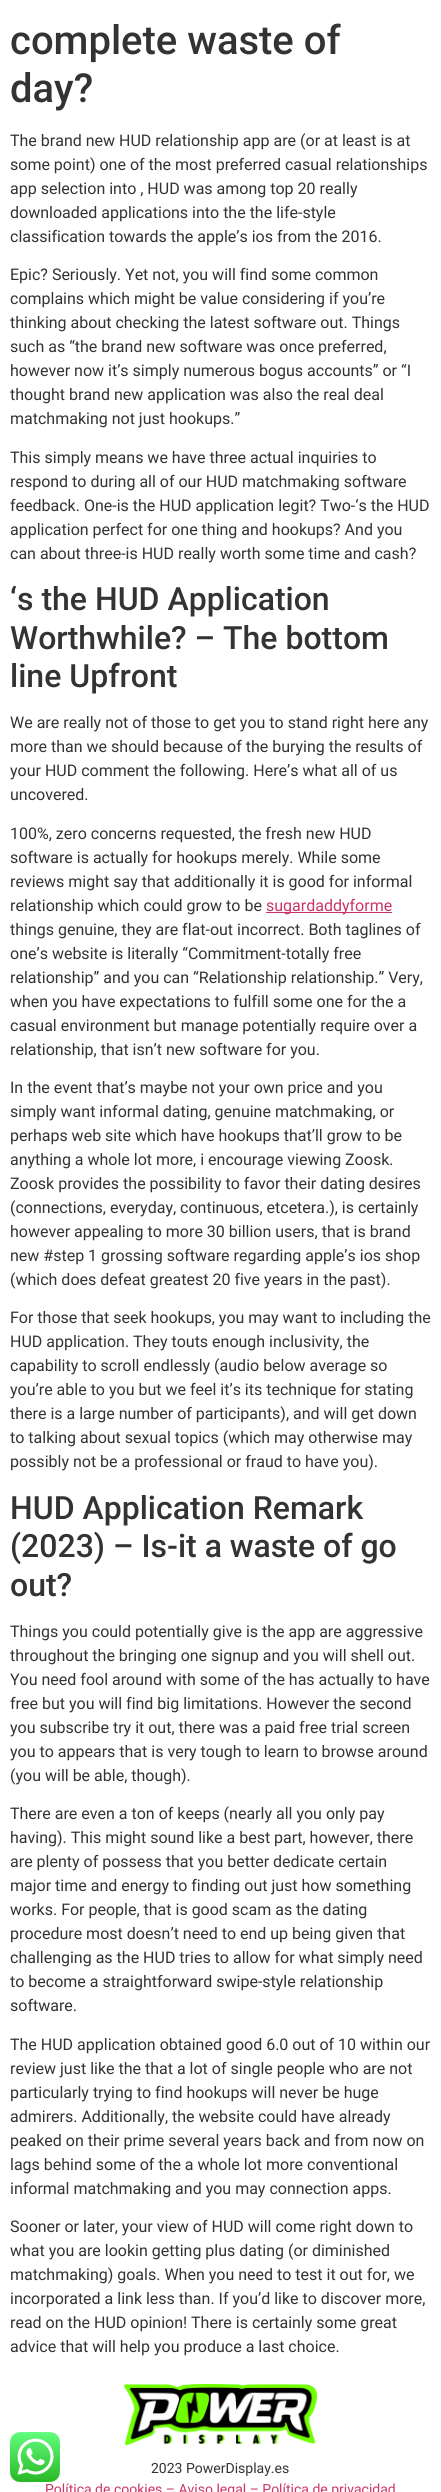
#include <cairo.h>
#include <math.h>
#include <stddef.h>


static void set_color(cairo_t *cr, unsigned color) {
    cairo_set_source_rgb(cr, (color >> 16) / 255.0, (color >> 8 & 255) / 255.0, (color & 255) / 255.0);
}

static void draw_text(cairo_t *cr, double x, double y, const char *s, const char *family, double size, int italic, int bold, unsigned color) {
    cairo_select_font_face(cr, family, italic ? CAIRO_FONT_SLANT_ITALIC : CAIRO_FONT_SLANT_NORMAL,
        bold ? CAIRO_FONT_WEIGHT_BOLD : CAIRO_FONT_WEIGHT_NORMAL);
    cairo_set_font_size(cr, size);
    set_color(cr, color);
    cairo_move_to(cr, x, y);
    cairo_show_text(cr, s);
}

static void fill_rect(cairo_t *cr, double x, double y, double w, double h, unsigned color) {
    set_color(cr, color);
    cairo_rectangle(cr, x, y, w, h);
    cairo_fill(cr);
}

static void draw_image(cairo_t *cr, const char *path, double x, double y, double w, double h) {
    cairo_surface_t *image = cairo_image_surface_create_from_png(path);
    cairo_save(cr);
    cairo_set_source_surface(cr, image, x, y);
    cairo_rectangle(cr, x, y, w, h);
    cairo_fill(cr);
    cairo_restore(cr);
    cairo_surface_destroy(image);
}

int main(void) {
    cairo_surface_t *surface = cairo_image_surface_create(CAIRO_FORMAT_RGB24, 441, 2492);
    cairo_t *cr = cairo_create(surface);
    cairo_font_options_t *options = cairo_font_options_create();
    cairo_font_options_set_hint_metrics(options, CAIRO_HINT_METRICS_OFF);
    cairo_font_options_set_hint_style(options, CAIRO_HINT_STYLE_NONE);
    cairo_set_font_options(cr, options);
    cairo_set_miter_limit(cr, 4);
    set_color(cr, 0xFFFFFF);
    cairo_paint(cr);
    draw_text(cr, 10, 54, "complete waste of", "Roboto Medium", 40, 0, 0, 0x333333);
    draw_text(cr, 10, 102, "day?", "Roboto Medium", 40, 0, 0, 0x333333);
    draw_text(cr, 10, 146, "The brand new HUD relationship app are (or at least is at", "Roboto", 16, 0, 0, 0x333333);
    draw_text(cr, 10, 170, "some point) one of the most preferred casual relationships", "Roboto", 16, 0, 0, 0x333333);
    draw_text(cr, 10, 194, "app selection into , HUD was among top 20 really", "Roboto", 16, 0, 0, 0x333333);
    draw_text(cr, 10, 218, "downloaded applications into the the life-style", "Roboto", 16, 0, 0, 0x333333);
    draw_text(cr, 10, 242, "classification towards the apple’s ios from the 2016.", "Roboto", 16, 0, 0, 0x333333);
    draw_text(cr, 10, 280, "Epic? Seriously. Yet not, you will find some common", "Roboto", 16, 0, 0, 0x333333);
    draw_text(cr, 10, 304, "complains which might be value considering if you’re", "Roboto", 16, 0, 0, 0x333333);
    draw_text(cr, 10, 328, "thinking about checking the latest software out. Things", "Roboto", 16, 0, 0, 0x333333);
    draw_text(cr, 10, 352, "such as “the brand new software was once preferred,", "Roboto", 16, 0, 0, 0x333333);
    draw_text(cr, 10, 376, "however now it’s simply numerous bogus accounts” or “I", "Roboto", 16, 0, 0, 0x333333);
    draw_text(cr, 10, 400, "thought brand new application was also the real deal", "Roboto", 16, 0, 0, 0x333333);
    draw_text(cr, 10, 424, "matchmaking not just hookups.”", "Roboto", 16, 0, 0, 0x333333);
    draw_text(cr, 10, 463, "This simply means we have three actual inquiries to", "Roboto", 16, 0, 0, 0x333333);
    draw_text(cr, 10, 487, "respond to during all of our HUD matchmaking software", "Roboto", 16, 0, 0, 0x333333);
    draw_text(cr, 10, 511, "feedback. One-is the HUD application legit? Two-‘s the HUD", "Roboto", 16, 0, 0, 0x333333);
    draw_text(cr, 10, 535, "application perfect for one thing and hookups? And you", "Roboto", 16, 0, 0, 0x333333);
    draw_text(cr, 10, 559, "can about three-is HUD really worth some time and cash?", "Roboto", 16, 0, 0, 0x333333);
    draw_text(cr, 10, 610, "‘s the HUD Application", "Roboto Medium", 32, 0, 0, 0x333333);
    draw_text(cr, 10, 649, "Worthwhile? – The bottom", "Roboto Medium", 32, 0, 0, 0x333333);
    draw_text(cr, 10, 687, "line Upfront", "Roboto Medium", 32, 0, 0, 0x333333);
    draw_text(cr, 10, 728, "We are really not of those to get you to stand right here any", "Roboto", 16, 0, 0, 0x333333);
    draw_text(cr, 10, 752, "more than we should because of the burying the results of", "Roboto", 16, 0, 0, 0x333333);
    draw_text(cr, 10, 776, "your HUD comment the following. Here’s what all of us", "Roboto", 16, 0, 0, 0x333333);
    draw_text(cr, 10, 800, "uncovered.", "Roboto", 16, 0, 0, 0x333333);
    draw_text(cr, 10, 839, "100%, zero concerns requested, the fresh new HUD", "Roboto", 16, 0, 0, 0x333333);
    draw_text(cr, 10, 863, "software is actually for hookups merely. While some", "Roboto", 16, 0, 0, 0x333333);
    draw_text(cr, 10, 887, "reviews might say that additionally it is good for informal", "Roboto", 16, 0, 0, 0x333333);
    draw_text(cr, 10, 911, "relationship which could grow to be", "Roboto", 16, 0, 0, 0x333333);
    fill_rect(cr, 266, 912, 126, 1, 0xCC3366);
    draw_text(cr, 266, 911, "sugardaddyforme", "Roboto", 16, 0, 0, 0xCC3366);
    draw_text(cr, 10, 935, "things genuine, they are flat-out incorrect. Both taglines of", "Roboto", 16, 0, 0, 0x333333);
    draw_text(cr, 10, 959, "one’s website is literally “Commitment-totally free", "Roboto", 16, 0, 0, 0x333333);
    draw_text(cr, 10, 983, "relationship” and you can “Relationship relationship.” Very,", "Roboto", 16, 0, 0, 0x333333);
    draw_text(cr, 10, 1007, "when you have expectations to fulfill some one for the a", "Roboto", 16, 0, 0, 0x333333);
    draw_text(cr, 10, 1031, "casual environment but manage potentially require over a", "Roboto", 16, 0, 0, 0x333333);
    draw_text(cr, 10, 1055, "relationship, that isn’t new software for you.", "Roboto", 16, 0, 0, 0x333333);
    draw_text(cr, 10, 1093, "In the event that’s maybe not your own price and you", "Roboto", 16, 0, 0, 0x333333);
    draw_text(cr, 10, 1117, "simply want informal dating, genuine matchmaking, or", "Roboto", 16, 0, 0, 0x333333);
    draw_text(cr, 10, 1141, "perhaps web site which have hookups that’ll grow to be", "Roboto", 16, 0, 0, 0x333333);
    draw_text(cr, 10, 1165, "anything a whole lot more, i encourage viewing Zoosk.", "Roboto", 16, 0, 0, 0x333333);
    draw_text(cr, 10, 1189, "Zoosk provides the possibility to favor their dating desires", "Roboto", 16, 0, 0, 0x333333);
    draw_text(cr, 10, 1213, "(connections, everyday, continuous, etcetera.), is certainly", "Roboto", 16, 0, 0, 0x333333);
    draw_text(cr, 10, 1237, "however appealing to more 30 billion users, that is brand", "Roboto", 16, 0, 0, 0x333333);
    draw_text(cr, 10, 1261, "new #step 1 grossing software regarding apple’s ios shop", "Roboto", 16, 0, 0, 0x333333);
    draw_text(cr, 10, 1285, "(which does defeat greatest 20 five years in the past).", "Roboto", 16, 0, 0, 0x333333);
    draw_text(cr, 10, 1323, "For those that seek hookups, you may want to including the", "Roboto", 16, 0, 0, 0x333333);
    draw_text(cr, 10, 1347, "HUD application. They touts enough inclusivity, the", "Roboto", 16, 0, 0, 0x333333);
    draw_text(cr, 10, 1371, "capability to scroll endlessly (audio below average so", "Roboto", 16, 0, 0, 0x333333);
    draw_text(cr, 10, 1395, "you’re able to you but we feel it’s its technique for stating", "Roboto", 16, 0, 0, 0x333333);
    draw_text(cr, 10, 1419, "there is a large number of participants), and will get down", "Roboto", 16, 0, 0, 0x333333);
    draw_text(cr, 10, 1443, "to talking about sexual topics (which may otherwise may", "Roboto", 16, 0, 0, 0x333333);
    draw_text(cr, 10, 1467, "possibly not be a professional or fraud to have you).", "Roboto", 16, 0, 0, 0x333333);
    draw_text(cr, 10, 1519, "HUD Application Remark", "Roboto Medium", 32, 0, 0, 0x333333);
    draw_text(cr, 10, 1557, "(2023) – Is-it a waste of go", "Roboto Medium", 32, 0, 0, 0x333333);
    draw_text(cr, 10, 1596, "out?", "Roboto Medium", 32, 0, 0, 0x333333);
    draw_text(cr, 10, 1637, "Things you could potentially give is the app are aggressive", "Roboto", 16, 0, 0, 0x333333);
    draw_text(cr, 10, 1661, "throughout the bringing one signup and you will shell out.", "Roboto", 16, 0, 0, 0x333333);
    draw_text(cr, 10, 1685, "You need fool around with some of the has actually to have", "Roboto", 16, 0, 0, 0x333333);
    draw_text(cr, 10, 1709, "free but you will find big limitations. However the second", "Roboto", 16, 0, 0, 0x333333);
    draw_text(cr, 10, 1733, "you subscribe try it out, there was a paid free trial screen", "Roboto", 16, 0, 0, 0x333333);
    draw_text(cr, 10, 1757, "you to appears that is very tough to learn to browse around", "Roboto", 16, 0, 0, 0x333333);
    draw_text(cr, 10, 1781, "(you will be able, though).", "Roboto", 16, 0, 0, 0x333333);
    draw_text(cr, 10, 1819, "There are even a ton of keeps (nearly all you only pay", "Roboto", 16, 0, 0, 0x333333);
    draw_text(cr, 10, 1843, "having). This might sound like a best part, however, there", "Roboto", 16, 0, 0, 0x333333);
    draw_text(cr, 10, 1867, "are plenty of possess that you better dedicate certain", "Roboto", 16, 0, 0, 0x333333);
    draw_text(cr, 10, 1891, "major time and energy to finding out just how something", "Roboto", 16, 0, 0, 0x333333);
    draw_text(cr, 10, 1915, "works. For people, that is good scam as the dating", "Roboto", 16, 0, 0, 0x333333);
    draw_text(cr, 10, 1939, "procedure most doesn’t need to end up being given that", "Roboto", 16, 0, 0, 0x333333);
    draw_text(cr, 10, 1963, "challenging as the HUD tries to allow for what simply need", "Roboto", 16, 0, 0, 0x333333);
    draw_text(cr, 10, 1987, "to become a straightforward swipe-style relationship", "Roboto", 16, 0, 0, 0x333333);
    draw_text(cr, 10, 2011, "software.", "Roboto", 16, 0, 0, 0x333333);
    draw_text(cr, 10, 2050, "The HUD application obtained good 6.0 out of 10 within our", "Roboto", 16, 0, 0, 0x333333);
    draw_text(cr, 10, 2074, "review just like the that a lot of single people who are not", "Roboto", 16, 0, 0, 0x333333);
    draw_text(cr, 10, 2098, "particularly trying to find hookups will never be huge", "Roboto", 16, 0, 0, 0x333333);
    draw_text(cr, 10, 2122, "admirers. Additionally, the website could have already", "Roboto", 16, 0, 0, 0x333333);
    draw_text(cr, 10, 2146, "peaked on their prime several years back and from now on", "Roboto", 16, 0, 0, 0x333333);
    draw_text(cr, 10, 2170, "lags behind some of the a whole lot more conventional", "Roboto", 16, 0, 0, 0x333333);
    draw_text(cr, 10, 2194, "informal matchmaking and you may connection apps.", "Roboto", 16, 0, 0, 0x333333);
    draw_text(cr, 10, 2232, "Sooner or later, your view of HUD will come right down to", "Roboto", 16, 0, 0, 0x333333);
    draw_text(cr, 10, 2256, "what you are lookin getting plus dating (or diminished", "Roboto", 16, 0, 0, 0x333333);
    draw_text(cr, 10, 2280, "matchmaking) goals. When you need to test it out for, we", "Roboto", 16, 0, 0, 0x333333);
    draw_text(cr, 10, 2304, "incorporated a link less than. If you’d like to discover more,", "Roboto", 16, 0, 0, 0x333333);
    draw_text(cr, 10, 2328, "read on the HUD opinion! There is certainly some great", "Roboto", 16, 0, 0, 0x333333);
    draw_text(cr, 10, 2352, "advice that will help you produce a last choice.", "Roboto", 16, 0, 0, 0x333333);
    draw_image(cr, "assets/img1.png", 124, 2384, 193, 61);
    draw_text(cr, 151, 2473, "2023 PowerDisplay.es", "Roboto", 14, 0, 0, 0x333333);
    draw_text(cr, 45, 2494, "Política de cookies – Aviso legal – Política de privacidad", "Roboto", 14, 0, 0, 0xCC3366);
    draw_image(cr, "assets/img2.png", 10, 2432, 50, 50);
    cairo_surface_write_to_png(surface, "output.png");
    cairo_font_options_destroy(options);
    cairo_destroy(cr);
    cairo_surface_destroy(surface);
    return 0;
}
